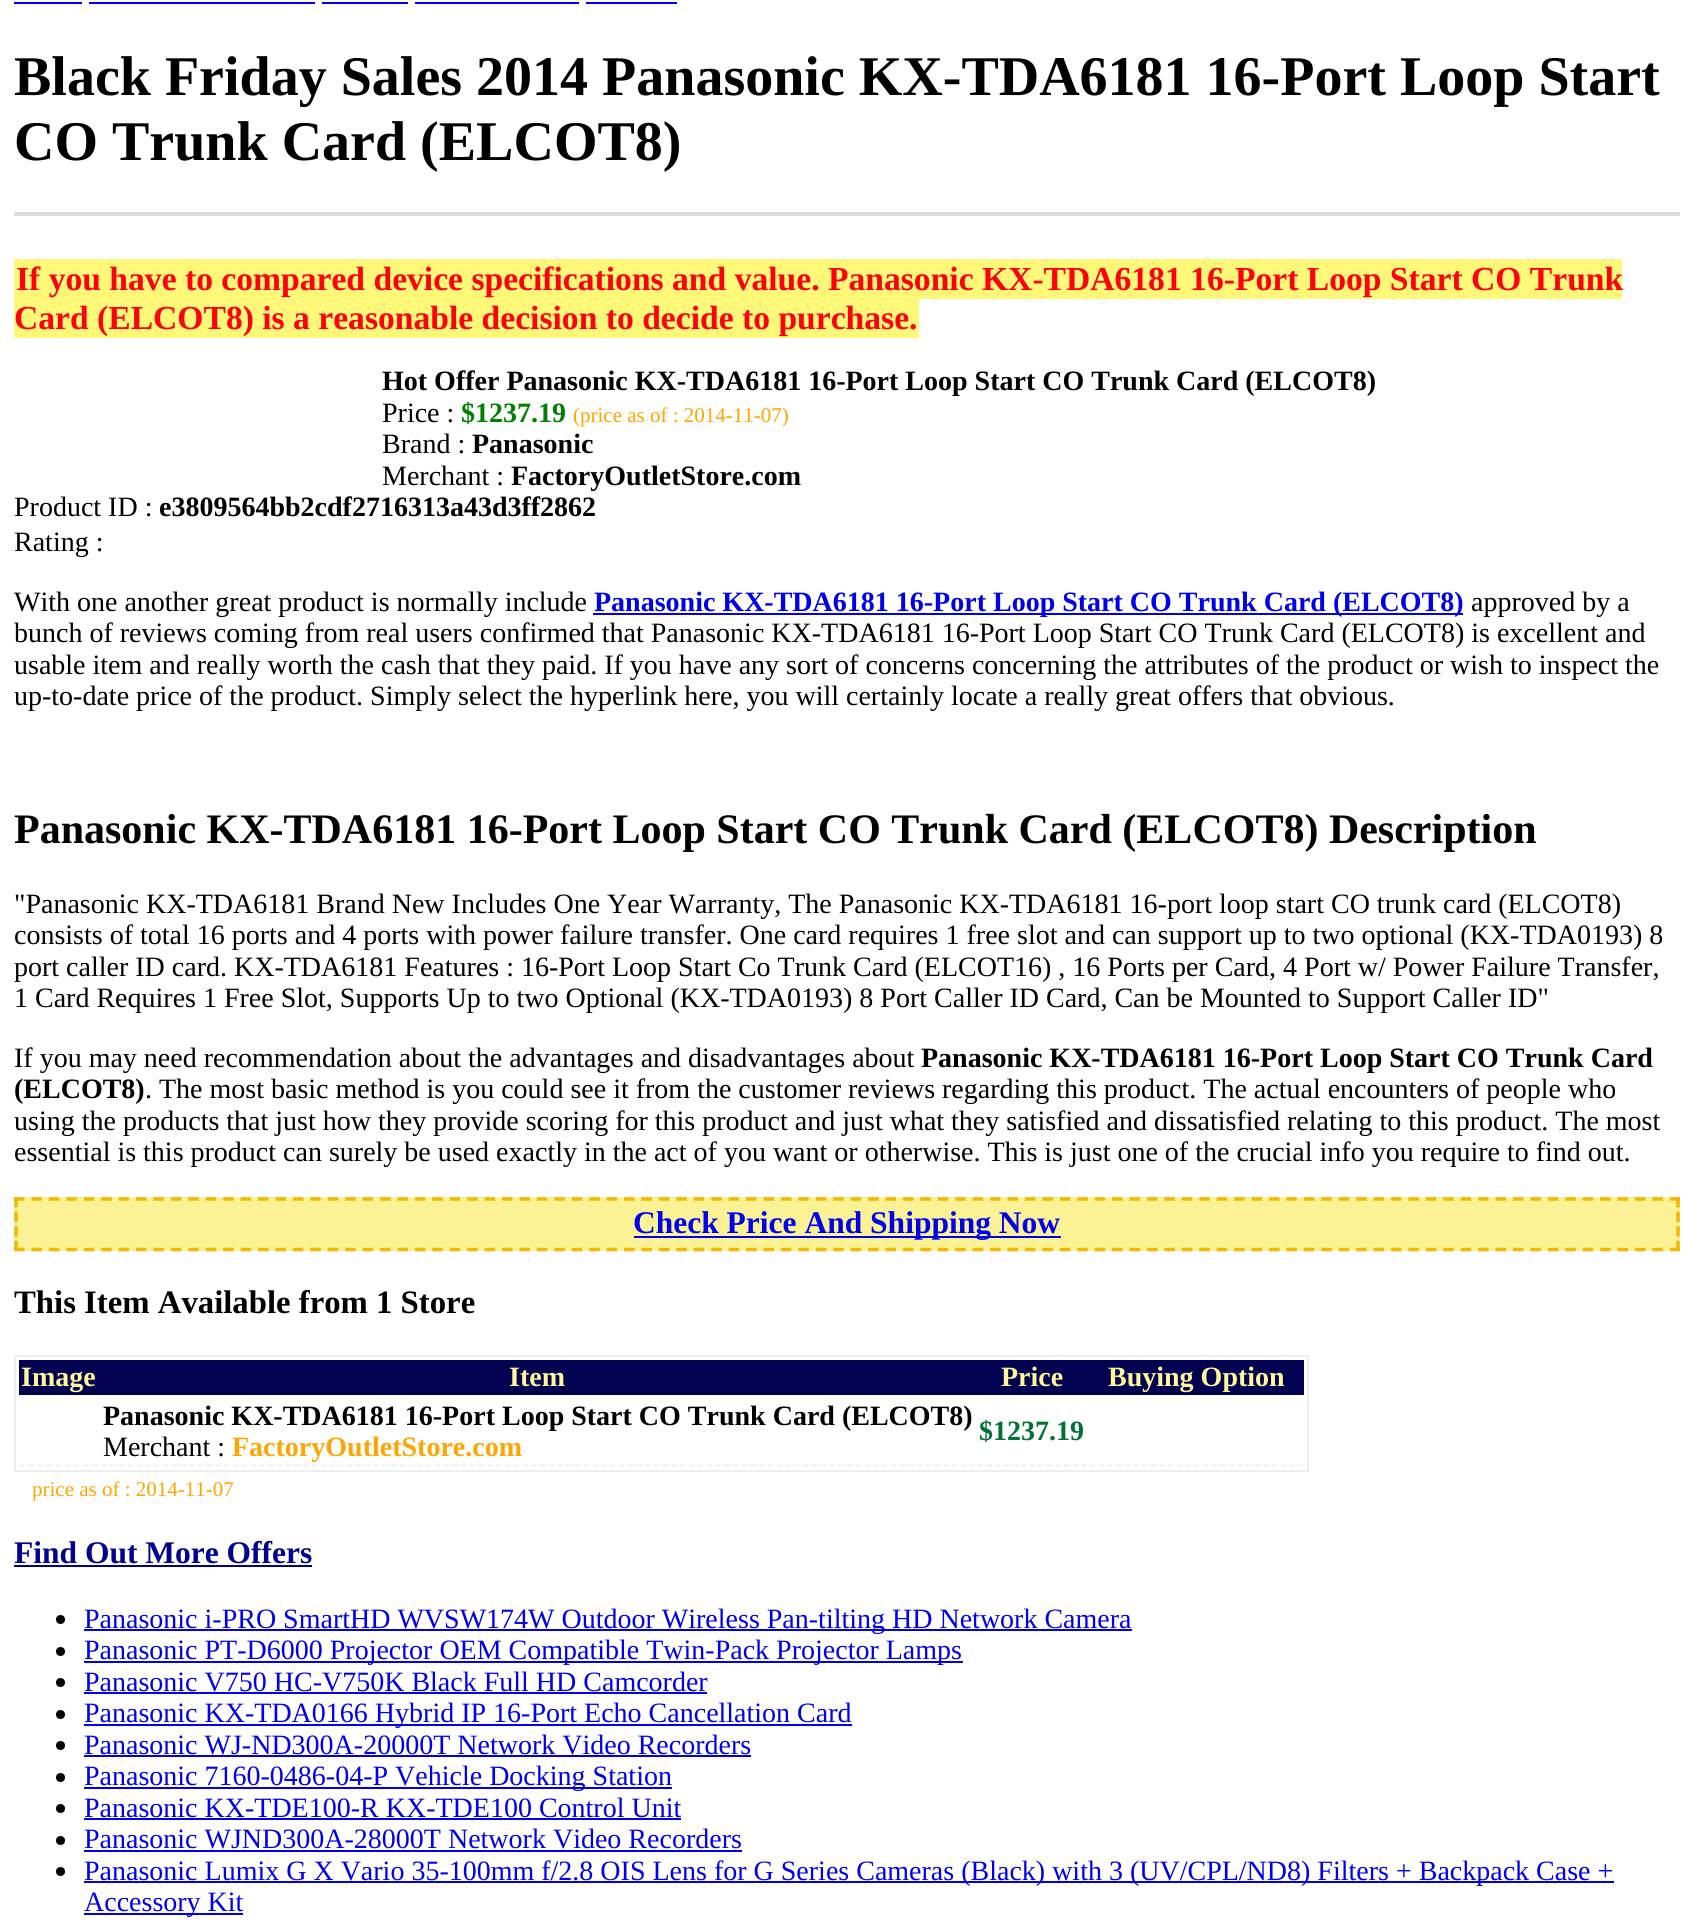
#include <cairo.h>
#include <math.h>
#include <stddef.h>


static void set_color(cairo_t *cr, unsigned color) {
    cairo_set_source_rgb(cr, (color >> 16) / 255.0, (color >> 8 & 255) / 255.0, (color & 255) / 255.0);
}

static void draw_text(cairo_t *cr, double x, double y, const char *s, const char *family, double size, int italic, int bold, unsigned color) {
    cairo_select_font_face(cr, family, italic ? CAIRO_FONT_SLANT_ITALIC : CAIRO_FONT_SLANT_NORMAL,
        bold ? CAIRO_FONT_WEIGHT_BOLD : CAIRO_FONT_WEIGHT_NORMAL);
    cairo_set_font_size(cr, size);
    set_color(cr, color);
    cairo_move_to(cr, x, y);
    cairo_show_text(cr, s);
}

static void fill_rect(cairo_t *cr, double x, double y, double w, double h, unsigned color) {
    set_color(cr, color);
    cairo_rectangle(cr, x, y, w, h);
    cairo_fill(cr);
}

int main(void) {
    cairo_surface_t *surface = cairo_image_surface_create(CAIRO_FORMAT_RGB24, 1693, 1929);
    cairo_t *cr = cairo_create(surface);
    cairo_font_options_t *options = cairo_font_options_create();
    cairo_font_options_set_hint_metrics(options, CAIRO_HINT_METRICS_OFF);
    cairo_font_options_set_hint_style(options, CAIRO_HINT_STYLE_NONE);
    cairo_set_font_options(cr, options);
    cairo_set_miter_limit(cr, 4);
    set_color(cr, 0xFFFFFF);
    cairo_paint(cr);
    fill_rect(cr, 14, 2, 68, 2, 0x0000EE);
    fill_rect(cr, 89, 2, 226, 2, 0x0000EE);
    fill_rect(cr, 322, 2, 86, 2, 0x0000EE);
    fill_rect(cr, 415, 2, 164, 2, 0x0000EE);
    fill_rect(cr, 586, 2, 91, 2, 0x0000EE);
    draw_text(cr, 14, 95, "Black Friday Sales 2014 Panasonic KX-TDA6181 16-Port Loop Start", "Liberation Serif", 56, 0, 1, 0x000000);
    draw_text(cr, 14, 160, "CO Trunk Card (ELCOT8)", "Liberation Serif", 56, 0, 1, 0x000000);
    fill_rect(cr, 14, 212, 1666, 4, 0xDDDDDD);
    fill_rect(cr, 14, 259, 1608, 40, 0xFFF777);
    draw_text(cr, 16, 290, "If you have to compared device specifications and value. Panasonic KX-TDA6181 16-Port Loop Start CO Trunk", "Liberation Serif", 33.6, 0, 1, 0xFF0010);
    fill_rect(cr, 14, 299, 905, 39, 0xFFF777);
    draw_text(cr, 14, 329, "Card (ELCOT8) is a reasonable decision to decide to purchase.", "Liberation Serif", 33.6, 0, 1, 0xFF0010);
    draw_text(cr, 382, 390, "Hot Offer Panasonic KX-TDA6181 16-Port Loop Start CO Trunk Card (ELCOT8)", "Liberation Serif", 28, 0, 1, 0x000000);
    draw_text(cr, 382, 422, "Price :", "Liberation Serif", 28, 0, 0, 0x000000);
    draw_text(cr, 461, 422, "$1237.19", "Liberation Serif", 28, 0, 1, 0x008000);
    draw_text(cr, 573, 422, "(price as of : 2014-11-07)", "Liberation Serif", 21, 0, 0, 0xFFA500);
    draw_text(cr, 382, 453, "Brand :", "Liberation Serif", 28, 0, 0, 0x000000);
    draw_text(cr, 472, 453, "Panasonic", "Liberation Serif", 28, 0, 1, 0x000000);
    draw_text(cr, 382, 485, "Merchant :", "Liberation Serif", 28, 0, 0, 0x000000);
    draw_text(cr, 511, 485, "FactoryOutletStore.com", "Liberation Serif", 28, 0, 1, 0x000000);
    draw_text(cr, 14, 516, "Product ID :", "Liberation Serif", 28, 0, 0, 0x000000);
    draw_text(cr, 159, 516, "e3809564bb2cdf2716313a43d3ff2862", "Liberation Serif", 28, 0, 1, 0x000000);
    draw_text(cr, 14, 551, "Rating :", "Liberation Serif", 28, 0, 0, 0x000000);
    draw_text(cr, 14, 611, "With one another great product is normally include", "Liberation Serif", 28, 0, 0, 0x000000);
    fill_rect(cr, 593, 613, 870, 2, 0x0000EE);
    draw_text(cr, 594, 611, "Panasonic KX-TDA6181 16-Port Loop Start CO Trunk Card (ELCOT8)", "Liberation Serif", 28, 0, 1, 0x0000EE);
    draw_text(cr, 1471, 611, "approved by a", "Liberation Serif", 28, 0, 0, 0x000000);
    draw_text(cr, 14, 642, "bunch of reviews coming from real users confirmed that Panasonic KX-TDA6181 16-Port Loop Start CO Trunk Card (ELCOT8) is excellent and", "Liberation Serif", 28, 0, 0, 0x000000);
    draw_text(cr, 14, 674, "usable item and really worth the cash that they paid. If you have any sort of concerns concerning the attributes of the product or wish to inspect the", "Liberation Serif", 28, 0, 0, 0x000000);
    draw_text(cr, 14, 705, "up-to-date price of the product. Simply select the hyperlink here, you will certainly locate a really great offers that obvious.", "Liberation Serif", 28, 0, 0, 0x000000);
    draw_text(cr, 14, 843, "Panasonic KX-TDA6181 16-Port Loop Start CO Trunk Card (ELCOT8) Description", "Liberation Serif", 42, 0, 1, 0x000000);
    draw_text(cr, 14, 913, "\"Panasonic KX-TDA6181 Brand New Includes One Year Warranty, The Panasonic KX-TDA6181 16-port loop start CO trunk card (ELCOT8)", "Liberation Serif", 28, 0, 0, 0x000000);
    draw_text(cr, 14, 944, "consists of total 16 ports and 4 ports with power failure transfer. One card requires 1 free slot and can support up to two optional (KX-TDA0193) 8", "Liberation Serif", 28, 0, 0, 0x000000);
    draw_text(cr, 14, 976, "port caller ID card. KX-TDA6181 Features : 16-Port Loop Start Co Trunk Card (ELCOT16) , 16 Ports per Card, 4 Port w/ Power Failure Transfer,", "Liberation Serif", 28, 0, 0, 0x000000);
    draw_text(cr, 14, 1007, "1 Card Requires 1 Free Slot, Supports Up to two Optional (KX-TDA0193) 8 Port Caller ID Card, Can be Mounted to Support Caller ID\"", "Liberation Serif", 28, 0, 0, 0x000000);
    draw_text(cr, 14, 1067, "If you may need recommendation about the advantages and disadvantages about", "Liberation Serif", 28, 0, 0, 0x000000);
    draw_text(cr, 921, 1067, "Panasonic KX-TDA6181 16-Port Loop Start CO Trunk Card", "Liberation Serif", 28, 0, 1, 0x000000);
    draw_text(cr, 14, 1098, "(ELCOT8)", "Liberation Serif", 28, 0, 1, 0x000000);
    draw_text(cr, 145, 1098, ". The most basic method is you could see it from the customer reviews regarding this product. The actual encounters of people who", "Liberation Serif", 28, 0, 0, 0x000000);
    draw_text(cr, 14, 1130, "using the products that just how they provide scoring for this product and just what they satisfied and dissatisfied relating to this product. The most", "Liberation Serif", 28, 0, 0, 0x000000);
    draw_text(cr, 14, 1161, "essential is this product can surely be used exactly in the act of you want or otherwise. This is just one of the crucial info you require to find out.", "Liberation Serif", 28, 0, 0, 0x000000);
    fill_rect(cr, 14, 1197, 1666, 54, 0xFAF294);
    cairo_new_path(cr);
    cairo_move_to(cr, 14, 1199);
    cairo_line_to(cr, 1680, 1199);
    set_color(cr, 0xF6B700);
    cairo_set_line_width(cr, 3.5);
    cairo_set_dash(cr, (double[]){10.5, 6.93}, 2, 0);
    cairo_stroke(cr);
    cairo_new_path(cr);
    cairo_move_to(cr, 1678, 1197);
    cairo_line_to(cr, 1678, 1251);
    cairo_set_dash(cr, (double[]){10.5, 4.08}, 2, 0);
    cairo_stroke(cr);
    cairo_new_path(cr);
    cairo_move_to(cr, 14, 1249.5);
    cairo_line_to(cr, 1680, 1249.5);
    cairo_set_dash(cr, (double[]){10.5, 6.93}, 2, 0);
    cairo_stroke(cr);
    cairo_new_path(cr);
    cairo_move_to(cr, 16, 1197);
    cairo_line_to(cr, 16, 1251);
    cairo_set_dash(cr, (double[]){10.5, 4.08}, 2, 0);
    cairo_stroke(cr);
    fill_rect(cr, 634, 1236, 427, 2, 0x0000EE);
    draw_text(cr, 633, 1233, "Check Price And Shipping Now", "Liberation Serif", 31.5, 0, 1, 0x0000EE);
    draw_text(cr, 14, 1313, "This Item Available from 1 Store", "Liberation Serif", 32.75, 0, 1, 0x000000);
    cairo_rectangle(cr, 15, 1356, 1293, 115);
    set_color(cr, 0xEEEEEE);
    cairo_set_line_width(cr, 2);
    cairo_set_dash(cr, NULL, 0, 0);
    cairo_stroke(cr);
    fill_rect(cr, 19, 1360, 1285, 35, 0x020050);
    draw_text(cr, 21, 1386, "Image", "Liberation Serif", 28, 0, 1, 0xFFF799);
    draw_text(cr, 509, 1386, "Item", "Liberation Serif", 28, 0, 1, 0xFFF799);
    draw_text(cr, 1001, 1386, "Price", "Liberation Serif", 28, 0, 1, 0xFFF799);
    draw_text(cr, 1108, 1386, "Buying Option", "Liberation Serif", 28, 0, 1, 0xFFF799);
    cairo_new_path(cr);
    cairo_move_to(cr, 101.5, 1465.5);
    cairo_line_to(cr, 975, 1465.5);
    set_color(cr, 0xEEEEEE);
    cairo_set_line_width(cr, 1.8);
    cairo_set_dash(cr, (double[]){5.25, 3.52}, 2, 0);
    cairo_stroke(cr);
    draw_text(cr, 103, 1425, "Panasonic KX-TDA6181 16-Port Loop Start CO Trunk Card (ELCOT8)", "Liberation Serif", 28, 0, 1, 0x000000);
    draw_text(cr, 103, 1456, "Merchant :", "Liberation Serif", 28, 0, 0, 0x000000);
    draw_text(cr, 232, 1456, "FactoryOutletStore.com", "Liberation Serif", 28, 0, 1, 0xFFA500);
    cairo_new_path(cr);
    cairo_move_to(cr, 978, 1465.5);
    cairo_line_to(cr, 1087, 1465.5);
    set_color(cr, 0xEBEBEB);
    cairo_set_dash(cr, (double[]){5.25, 3.36}, 2, 0);
    cairo_stroke(cr);
    draw_text(cr, 979, 1440, "$1237.19", "Liberation Serif", 28, 0, 1, 0x007236);
    cairo_new_path(cr);
    cairo_move_to(cr, 19, 1465.5);
    cairo_line_to(cr, 98, 1465.5);
    set_color(cr, 0xEEEEEE);
    cairo_set_dash(cr, (double[]){5.25, 3.94}, 2, 0);
    cairo_stroke(cr);
    cairo_new_path(cr);
    cairo_move_to(cr, 1090, 1465.5);
    cairo_line_to(cr, 1304, 1465.5);
    cairo_set_dash(cr, (double[]){5.25, 3.43}, 2, 0);
    cairo_stroke(cr);
    draw_text(cr, 32, 1496, "price as of : 2014-11-07", "Liberation Serif", 21, 0, 0, 0xFFA500);
    draw_text(cr, 14, 1563, "Find Out More Offers", "Liberation Serif", 31.5, 0, 1, 0x020090);
    fill_rect(cr, 14, 1565, 298, 2, 0x020090);
    set_color(cr, 0x000000);
    cairo_new_path(cr);
    cairo_arc(cr, 60.5, 1619.5, 4.5, 0, 2 * M_PI);
    cairo_fill(cr);
    fill_rect(cr, 84, 1629, 1048, 2, 0x0000EE);
    draw_text(cr, 84, 1628, "Panasonic i-PRO SmartHD WVSW174W Outdoor Wireless Pan-tilting HD Network Camera", "Liberation Serif", 28, 0, 0, 0x0000EE);
    set_color(cr, 0x000000);
    cairo_new_path(cr);
    cairo_arc(cr, 60.5, 1651.5, 4.5, 0, 2 * M_PI);
    cairo_fill(cr);
    fill_rect(cr, 84, 1661, 879, 2, 0x0000EE);
    draw_text(cr, 84, 1659, "Panasonic PT-D6000 Projector OEM Compatible Twin-Pack Projector Lamps", "Liberation Serif", 28, 0, 0, 0x0000EE);
    set_color(cr, 0x000000);
    cairo_new_path(cr);
    cairo_arc(cr, 60.5, 1682.5, 4.5, 0, 2 * M_PI);
    cairo_fill(cr);
    draw_text(cr, 84, 1691, "Panasonic V750 HC-V750K Black Full HD Camcorder", "Liberation Serif", 28, 0, 0, 0x0000EE);
    fill_rect(cr, 84, 1692, 623, 2, 0x0000EE);
    set_color(cr, 0x000000);
    cairo_new_path(cr);
    cairo_arc(cr, 60.5, 1714.5, 4.5, 0, 2 * M_PI);
    cairo_fill(cr);
    fill_rect(cr, 84, 1724, 768, 2, 0x0000EE);
    draw_text(cr, 84, 1722, "Panasonic KX-TDA0166 Hybrid IP 16-Port Echo Cancellation Card", "Liberation Serif", 28, 0, 0, 0x0000EE);
    set_color(cr, 0x000000);
    cairo_new_path(cr);
    cairo_arc(cr, 60.5, 1745.5, 4.5, 0, 2 * M_PI);
    cairo_fill(cr);
    draw_text(cr, 84, 1754, "Panasonic WJ-ND300A-20000T Network Video Recorders", "Liberation Serif", 28, 0, 0, 0x0000EE);
    fill_rect(cr, 84, 1755, 667, 2, 0x0000EE);
    set_color(cr, 0x000000);
    cairo_new_path(cr);
    cairo_arc(cr, 60.5, 1777.5, 4.5, 0, 2 * M_PI);
    cairo_fill(cr);
    fill_rect(cr, 84, 1787, 588, 2, 0x0000EE);
    draw_text(cr, 84, 1785, "Panasonic 7160-0486-04-P Vehicle Docking Station", "Liberation Serif", 28, 0, 0, 0x0000EE);
    set_color(cr, 0x000000);
    cairo_new_path(cr);
    cairo_arc(cr, 60.5, 1808.5, 4.5, 0, 2 * M_PI);
    cairo_fill(cr);
    draw_text(cr, 84, 1817, "Panasonic KX-TDE100-R KX-TDE100 Control Unit", "Liberation Serif", 28, 0, 0, 0x0000EE);
    fill_rect(cr, 84, 1818, 597, 2, 0x0000EE);
    set_color(cr, 0x000000);
    cairo_new_path(cr);
    cairo_arc(cr, 60.5, 1840.5, 4.5, 0, 2 * M_PI);
    cairo_fill(cr);
    draw_text(cr, 84, 1848, "Panasonic WJND300A-28000T Network Video Recorders", "Liberation Serif", 28, 0, 0, 0x0000EE);
    fill_rect(cr, 84, 1850, 658, 2, 0x0000EE);
    set_color(cr, 0x000000);
    cairo_new_path(cr);
    cairo_arc(cr, 60.5, 1871.5, 4.5, 0, 2 * M_PI);
    cairo_fill(cr);
    fill_rect(cr, 84, 1881, 1530, 2, 0x0000EE);
    draw_text(cr, 84, 1880, "Panasonic Lumix G X Vario 35-100mm f/2.8 OIS Lens for G Series Cameras (Black) with 3 (UV/CPL/ND8) Filters + Backpack Case +", "Liberation Serif", 28, 0, 0, 0x0000EE);
    fill_rect(cr, 84, 1913, 159, 2, 0x0000EE);
    draw_text(cr, 84, 1911, "Accessory Kit", "Liberation Serif", 28, 0, 0, 0x0000EE);
    cairo_surface_write_to_png(surface, "output.png");
    cairo_font_options_destroy(options);
    cairo_destroy(cr);
    cairo_surface_destroy(surface);
    return 0;
}
